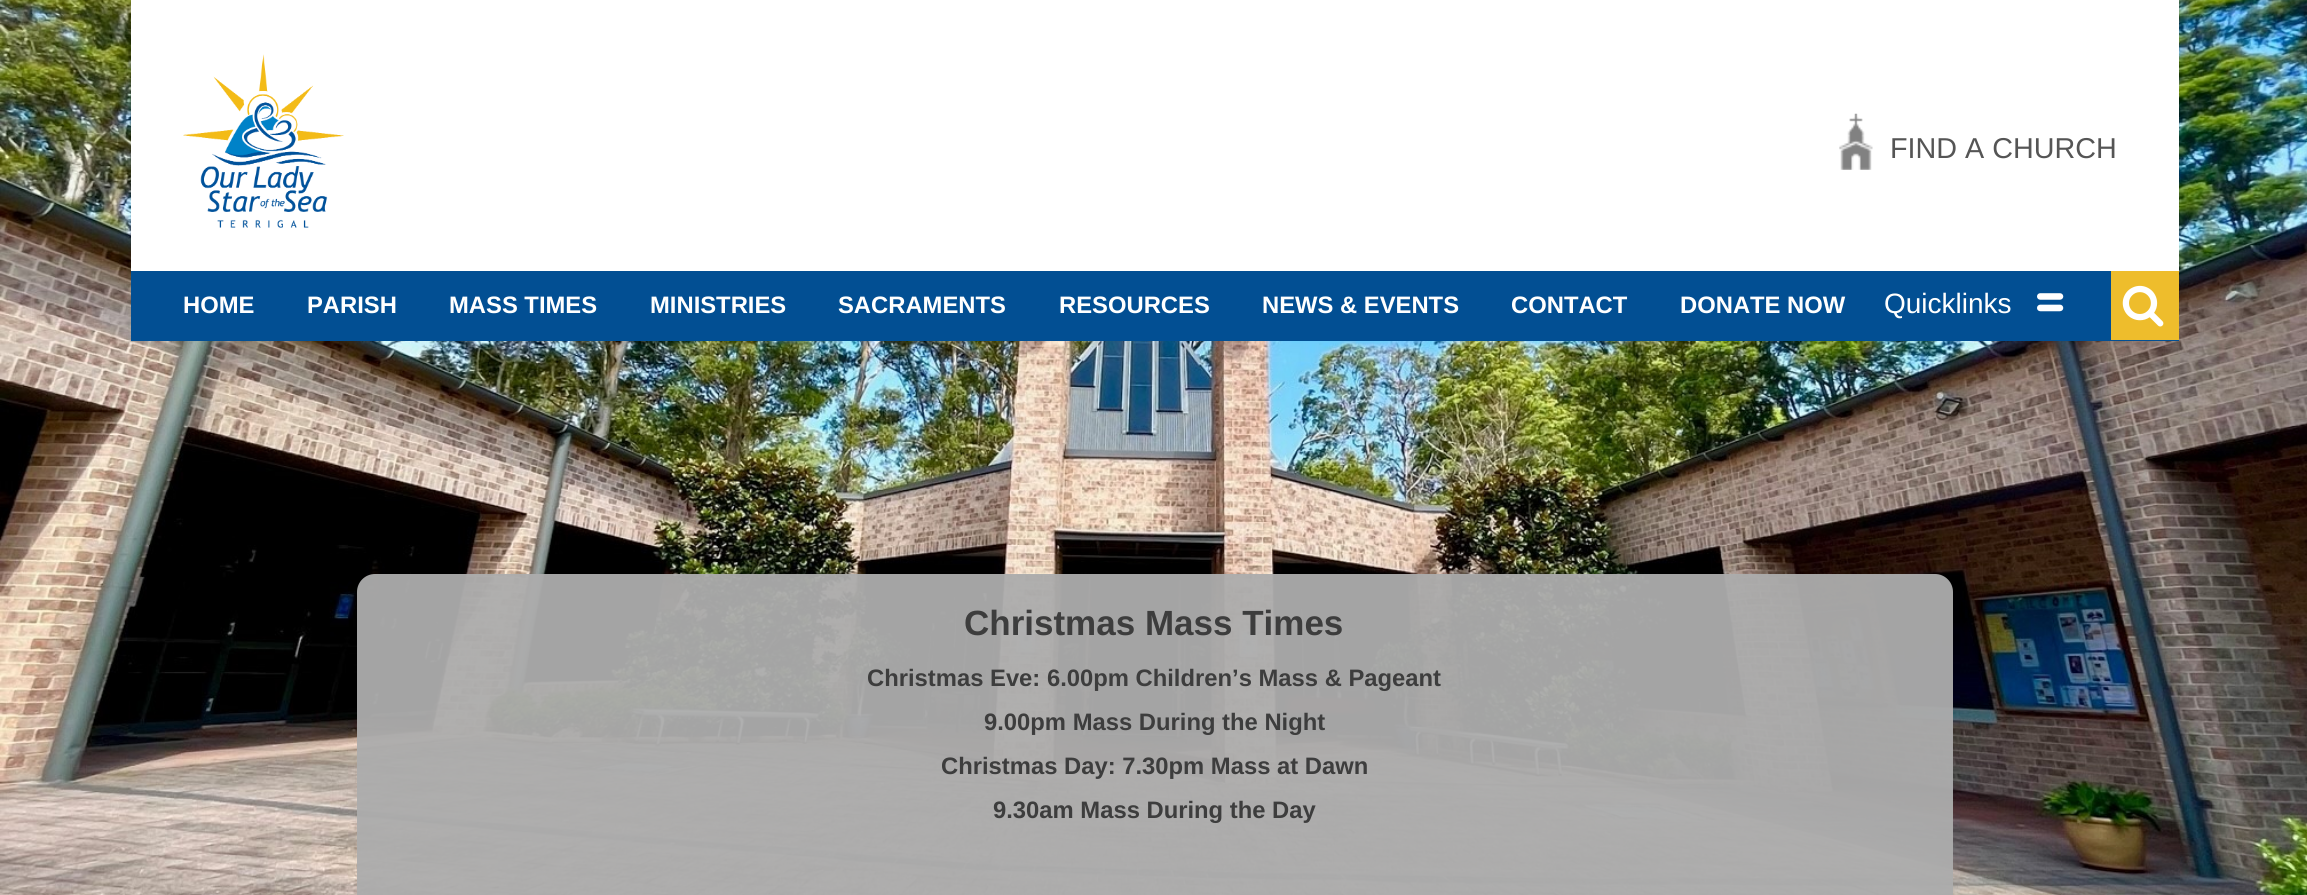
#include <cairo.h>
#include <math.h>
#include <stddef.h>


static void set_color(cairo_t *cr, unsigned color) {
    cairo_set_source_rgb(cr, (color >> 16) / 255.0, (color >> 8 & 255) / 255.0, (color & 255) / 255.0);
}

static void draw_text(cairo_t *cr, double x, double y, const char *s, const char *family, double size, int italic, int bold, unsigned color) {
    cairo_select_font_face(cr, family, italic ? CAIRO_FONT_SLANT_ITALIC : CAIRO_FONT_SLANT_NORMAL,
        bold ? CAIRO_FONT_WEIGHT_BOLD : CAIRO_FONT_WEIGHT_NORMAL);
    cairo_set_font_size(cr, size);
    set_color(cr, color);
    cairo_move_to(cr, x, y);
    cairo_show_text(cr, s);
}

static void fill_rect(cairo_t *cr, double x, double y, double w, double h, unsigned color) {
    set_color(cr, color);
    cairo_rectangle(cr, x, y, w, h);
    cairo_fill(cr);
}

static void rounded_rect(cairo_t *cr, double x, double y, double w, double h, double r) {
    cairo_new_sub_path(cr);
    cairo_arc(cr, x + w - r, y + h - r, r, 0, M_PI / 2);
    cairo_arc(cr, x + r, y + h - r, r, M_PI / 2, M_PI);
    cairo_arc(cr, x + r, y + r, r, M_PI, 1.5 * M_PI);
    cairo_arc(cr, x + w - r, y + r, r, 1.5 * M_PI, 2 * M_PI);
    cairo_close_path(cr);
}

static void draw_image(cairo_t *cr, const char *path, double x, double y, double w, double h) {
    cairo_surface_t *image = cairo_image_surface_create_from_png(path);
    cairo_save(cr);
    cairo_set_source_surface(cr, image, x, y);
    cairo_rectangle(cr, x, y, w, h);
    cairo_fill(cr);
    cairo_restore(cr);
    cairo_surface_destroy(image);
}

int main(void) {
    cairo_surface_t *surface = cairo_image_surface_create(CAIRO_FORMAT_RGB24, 2307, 895);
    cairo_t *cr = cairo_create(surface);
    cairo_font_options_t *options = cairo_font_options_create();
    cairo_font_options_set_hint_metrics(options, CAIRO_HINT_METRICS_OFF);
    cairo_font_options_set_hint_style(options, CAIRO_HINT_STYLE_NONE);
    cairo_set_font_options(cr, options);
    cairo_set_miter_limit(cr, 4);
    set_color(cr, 0xFFFFFF);
    cairo_paint(cr);
    draw_image(cr, "assets/img1.png", 0, 0, 2307, 895);
    fill_rect(cr, 131, 0, 2048, 271, 0xFFFFFF);
    draw_image(cr, "assets/img2.png", 183, 54, 161, 174);
    draw_image(cr, "assets/img3.png", 1839, 113, 34, 57);
    draw_text(cr, 1890, 158, "FIND A CHURCH", "Liberation Sans", 28.75, 0, 0, 0x555555);
    fill_rect(cr, 131, 271, 2048, 70, 0x024F93);
    draw_text(cr, 183, 313, "HOME", "Liberation Sans", 23.8, 0, 1, 0xFFFFFF);
    draw_text(cr, 307, 313, "PARISH", "Liberation Sans", 23.8, 0, 1, 0xFFFFFF);
    draw_text(cr, 449, 313, "MASS TIMES", "Liberation Sans", 23.8, 0, 1, 0xFFFFFF);
    draw_text(cr, 650, 313, "MINISTRIES", "Liberation Sans", 23.8, 0, 1, 0xFFFFFF);
    draw_text(cr, 838, 313, "SACRAMENTS", "Liberation Sans", 23.8, 0, 1, 0xFFFFFF);
    draw_text(cr, 1059, 313, "RESOURCES", "Liberation Sans", 23.8, 0, 1, 0xFFFFFF);
    draw_text(cr, 1262, 313, "NEWS & EVENTS", "Liberation Sans", 23.8, 0, 1, 0xFFFFFF);
    draw_text(cr, 1511, 313, "CONTACT", "Liberation Sans", 23.8, 0, 1, 0xFFFFFF);
    draw_text(cr, 1680, 313, "DONATE NOW", "Liberation Sans", 23.8, 0, 1, 0xFFFFFF);
    draw_text(cr, 1884, 313, "Quicklinks", "Liberation Sans", 28, 0, 0, 0xFFFFFF);
    draw_image(cr, "assets/img4.png", 2037, 293, 27, 19);
    fill_rect(cr, 2111, 271, 68, 69, 0xEEBD2C);
    draw_image(cr, "assets/img5.png", 2122, 285, 42, 42);
    cairo_set_source_rgba(cr, 0.678, 0.678, 0.678, 0.95);
    rounded_rect(cr, 357, 574, 1596, 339, 18);
    cairo_fill(cr);
    draw_text(cr, 964, 635, "Christmas Mass Times", "Liberation Sans", 35, 0, 1, 0x3D3D3D);
    draw_text(cr, 867, 686, "Christmas Eve: 6.00pm Children’s Mass & Pageant", "Liberation Sans", 23.8, 0, 1, 0x3D3D3D);
    draw_text(cr, 984, 730, "9.00pm Mass During the Night", "Liberation Sans", 23.8, 0, 1, 0x3D3D3D);
    draw_text(cr, 941, 774, "Christmas Day: 7.30pm Mass at Dawn", "Liberation Sans", 23.8, 0, 1, 0x3D3D3D);
    draw_text(cr, 993, 818, "9.30am Mass During the Day", "Liberation Sans", 23.8, 0, 1, 0x3D3D3D);
    cairo_surface_write_to_png(surface, "output.png");
    cairo_font_options_destroy(options);
    cairo_destroy(cr);
    cairo_surface_destroy(surface);
    return 0;
}
